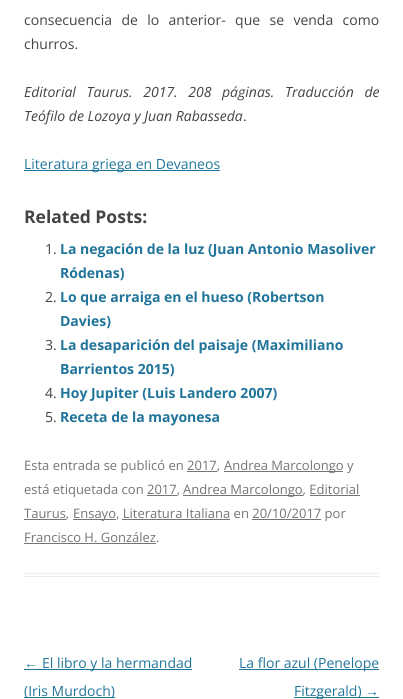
#include <cairo.h>
#include <math.h>
#include <stddef.h>


static void set_color(cairo_t *cr, unsigned color) {
    cairo_set_source_rgb(cr, (color >> 16) / 255.0, (color >> 8 & 255) / 255.0, (color & 255) / 255.0);
}

static void draw_text(cairo_t *cr, double x, double y, const char *s, const char *family, double size, int italic, int bold, unsigned color) {
    cairo_select_font_face(cr, family, italic ? CAIRO_FONT_SLANT_ITALIC : CAIRO_FONT_SLANT_NORMAL,
        bold ? CAIRO_FONT_WEIGHT_BOLD : CAIRO_FONT_WEIGHT_NORMAL);
    cairo_set_font_size(cr, size);
    set_color(cr, color);
    cairo_move_to(cr, x, y);
    cairo_show_text(cr, s);
}

static void draw_spaced(cairo_t *cr, double x, double y, const char *s, double letter, double word) {
    cairo_move_to(cr, x, y);
    while (*s) {
        char ch[5] = {0};
        int n = 0;
        do ch[n++] = *s++; while ((*s & 0xC0) == 0x80);
        cairo_show_text(cr, ch);
        cairo_rel_move_to(cr, letter + word * (*ch == ' '), 0);
    }
}

static void fill_rect(cairo_t *cr, double x, double y, double w, double h, unsigned color) {
    set_color(cr, color);
    cairo_rectangle(cr, x, y, w, h);
    cairo_fill(cr);
}

int main(void) {
    cairo_surface_t *surface = cairo_image_surface_create(CAIRO_FORMAT_RGB24, 403, 699);
    cairo_t *cr = cairo_create(surface);
    cairo_font_options_t *options = cairo_font_options_create();
    cairo_font_options_set_hint_metrics(options, CAIRO_HINT_METRICS_OFF);
    cairo_font_options_set_hint_style(options, CAIRO_HINT_STYLE_NONE);
    cairo_set_font_options(cr, options);
    cairo_set_miter_limit(cr, 4);
    set_color(cr, 0xFFFFFF);
    cairo_paint(cr);
    fill_rect(cr, 24, 573, 355, 1, 0xEDEDED);
    fill_rect(cr, 24, 576, 355, 1, 0xEDEDED);
    cairo_select_font_face(cr, "Open Sans", CAIRO_FONT_SLANT_NORMAL, CAIRO_FONT_WEIGHT_NORMAL);
    cairo_set_font_size(cr, 14);
    set_color(cr, 0x444444);
    draw_spaced(cr, 24, 25, "consecuencia de lo anterior- que se venda como", 0, 5.75);
    draw_text(cr, 24, 49, "churros.", "Open Sans", 14, 0, 0, 0x444444);
    cairo_select_font_face(cr, "Open Sans", CAIRO_FONT_SLANT_ITALIC, CAIRO_FONT_WEIGHT_NORMAL);
    draw_spaced(cr, 24, 97, "Editorial Taurus. 2017. 208 páginas. Traducción de", 0, 7);
    draw_text(cr, 24, 121, "Teófilo de Lozoya y Juan Rabasseda", "Open Sans", 14, 1, 0, 0x444444);
    draw_text(cr, 243, 121, ".", "Open Sans", 14, 0, 0, 0x444444);
    fill_rect(cr, 24, 170, 196, 1, 0x21759B);
    draw_text(cr, 24, 169, "Literatura griega en Devaneos", "Open Sans", 14, 0, 0, 0x21759B);
    draw_text(cr, 24, 223, "Related Posts:", "Open Sans", 17.5, 0, 1, 0x444444);
    draw_text(cr, 45, 254, "1.", "Open Sans", 14, 0, 0, 0x444444);
    draw_text(cr, 60, 254, "La negación de la luz (Juan Antonio Masoliver", "Open Sans", 14, 0, 1, 0x21759B);
    draw_text(cr, 60, 278, "Ródenas)", "Open Sans", 14, 0, 1, 0x21759B);
    draw_text(cr, 45, 302, "2.", "Open Sans", 14, 0, 0, 0x444444);
    draw_text(cr, 60, 302, "Lo que arraiga en el hueso (Robertson", "Open Sans", 14, 0, 1, 0x21759B);
    draw_text(cr, 60, 326, "Davies)", "Open Sans", 14, 0, 1, 0x21759B);
    draw_text(cr, 45, 350, "3.", "Open Sans", 14, 0, 0, 0x444444);
    draw_text(cr, 60, 350, "La desaparición del paisaje (Maximiliano", "Open Sans", 14, 0, 1, 0x21759B);
    draw_text(cr, 60, 374, "Barrientos 2015)", "Open Sans", 14, 0, 1, 0x21759B);
    draw_text(cr, 45, 398, "4.", "Open Sans", 14, 0, 0, 0x444444);
    draw_text(cr, 60, 398, "Hoy Jupiter (Luis Landero 2007)", "Open Sans", 14, 0, 1, 0x21759B);
    draw_text(cr, 45, 422, "5.", "Open Sans", 14, 0, 0, 0x444444);
    draw_text(cr, 60, 422, "Receta de la mayonesa", "Open Sans", 14, 0, 1, 0x21759B);
    draw_text(cr, 24, 470, "Esta entrada se publicó en 2017,", "Open Sans", 13, 0, 0, 0x757575);
    fill_rect(cr, 224, 471, 119, 1, 0x757575);
    draw_text(cr, 224, 470, "Andrea Marcolongo y", "Open Sans", 13, 0, 0, 0x757575);
    fill_rect(cr, 187, 471, 30, 1, 0x757575);
    draw_text(cr, 24, 494, "está etiquetada con 2017,", "Open Sans", 13, 0, 0, 0x757575);
    fill_rect(cr, 183, 495, 120, 1, 0x757575);
    draw_text(cr, 183, 494, "Andrea Marcolongo, Editorial", "Open Sans", 13, 0, 0, 0x757575);
    fill_rect(cr, 147, 495, 30, 1, 0x757575);
    fill_rect(cr, 24, 519, 42, 1, 0x757575);
    draw_text(cr, 24, 518, "Taurus,", "Open Sans", 13, 0, 0, 0x757575);
    fill_rect(cr, 310, 495, 50, 1, 0x757575);
    fill_rect(cr, 73, 519, 43, 1, 0x757575);
    draw_text(cr, 73, 518, "Ensayo, Literatura Italiana en 20/10/2017 por", "Open Sans", 13, 0, 0, 0x757575);
    fill_rect(cr, 122, 519, 108, 1, 0x757575);
    fill_rect(cr, 252, 519, 69, 1, 0x757575);
    draw_text(cr, 24, 542, "Francisco H. González.", "Open Sans", 13, 0, 0, 0x757575);
    fill_rect(cr, 24, 543, 132, 1, 0x757575);
    draw_text(cr, 24, 668, "←", "Liberation Sans", 14, 0, 0, 0x21759B);
    fill_rect(cr, 24, 669, 168, 1, 0x21759B);
    draw_text(cr, 42, 668, "El libro y la hermandad", "Open Sans", 14, 0, 0, 0x21759B);
    fill_rect(cr, 24, 697, 91, 1, 0x21759B);
    draw_text(cr, 24, 696, "(Iris Murdoch)", "Open Sans", 14, 0, 0, 0x21759B);
    fill_rect(cr, 239, 669, 140, 1, 0x21759B);
    draw_text(cr, 239, 668, "La flor azul (Penelope", "Open Sans", 14, 0, 0, 0x21759B);
    fill_rect(cr, 294, 697, 85, 1, 0x21759B);
    draw_text(cr, 294, 696, "Fitzgerald)", "Open Sans", 14, 0, 0, 0x21759B);
    draw_text(cr, 365, 696, "→", "Liberation Sans", 14, 0, 0, 0x21759B);
    cairo_surface_write_to_png(surface, "output.png");
    cairo_font_options_destroy(options);
    cairo_destroy(cr);
    cairo_surface_destroy(surface);
    return 0;
}
